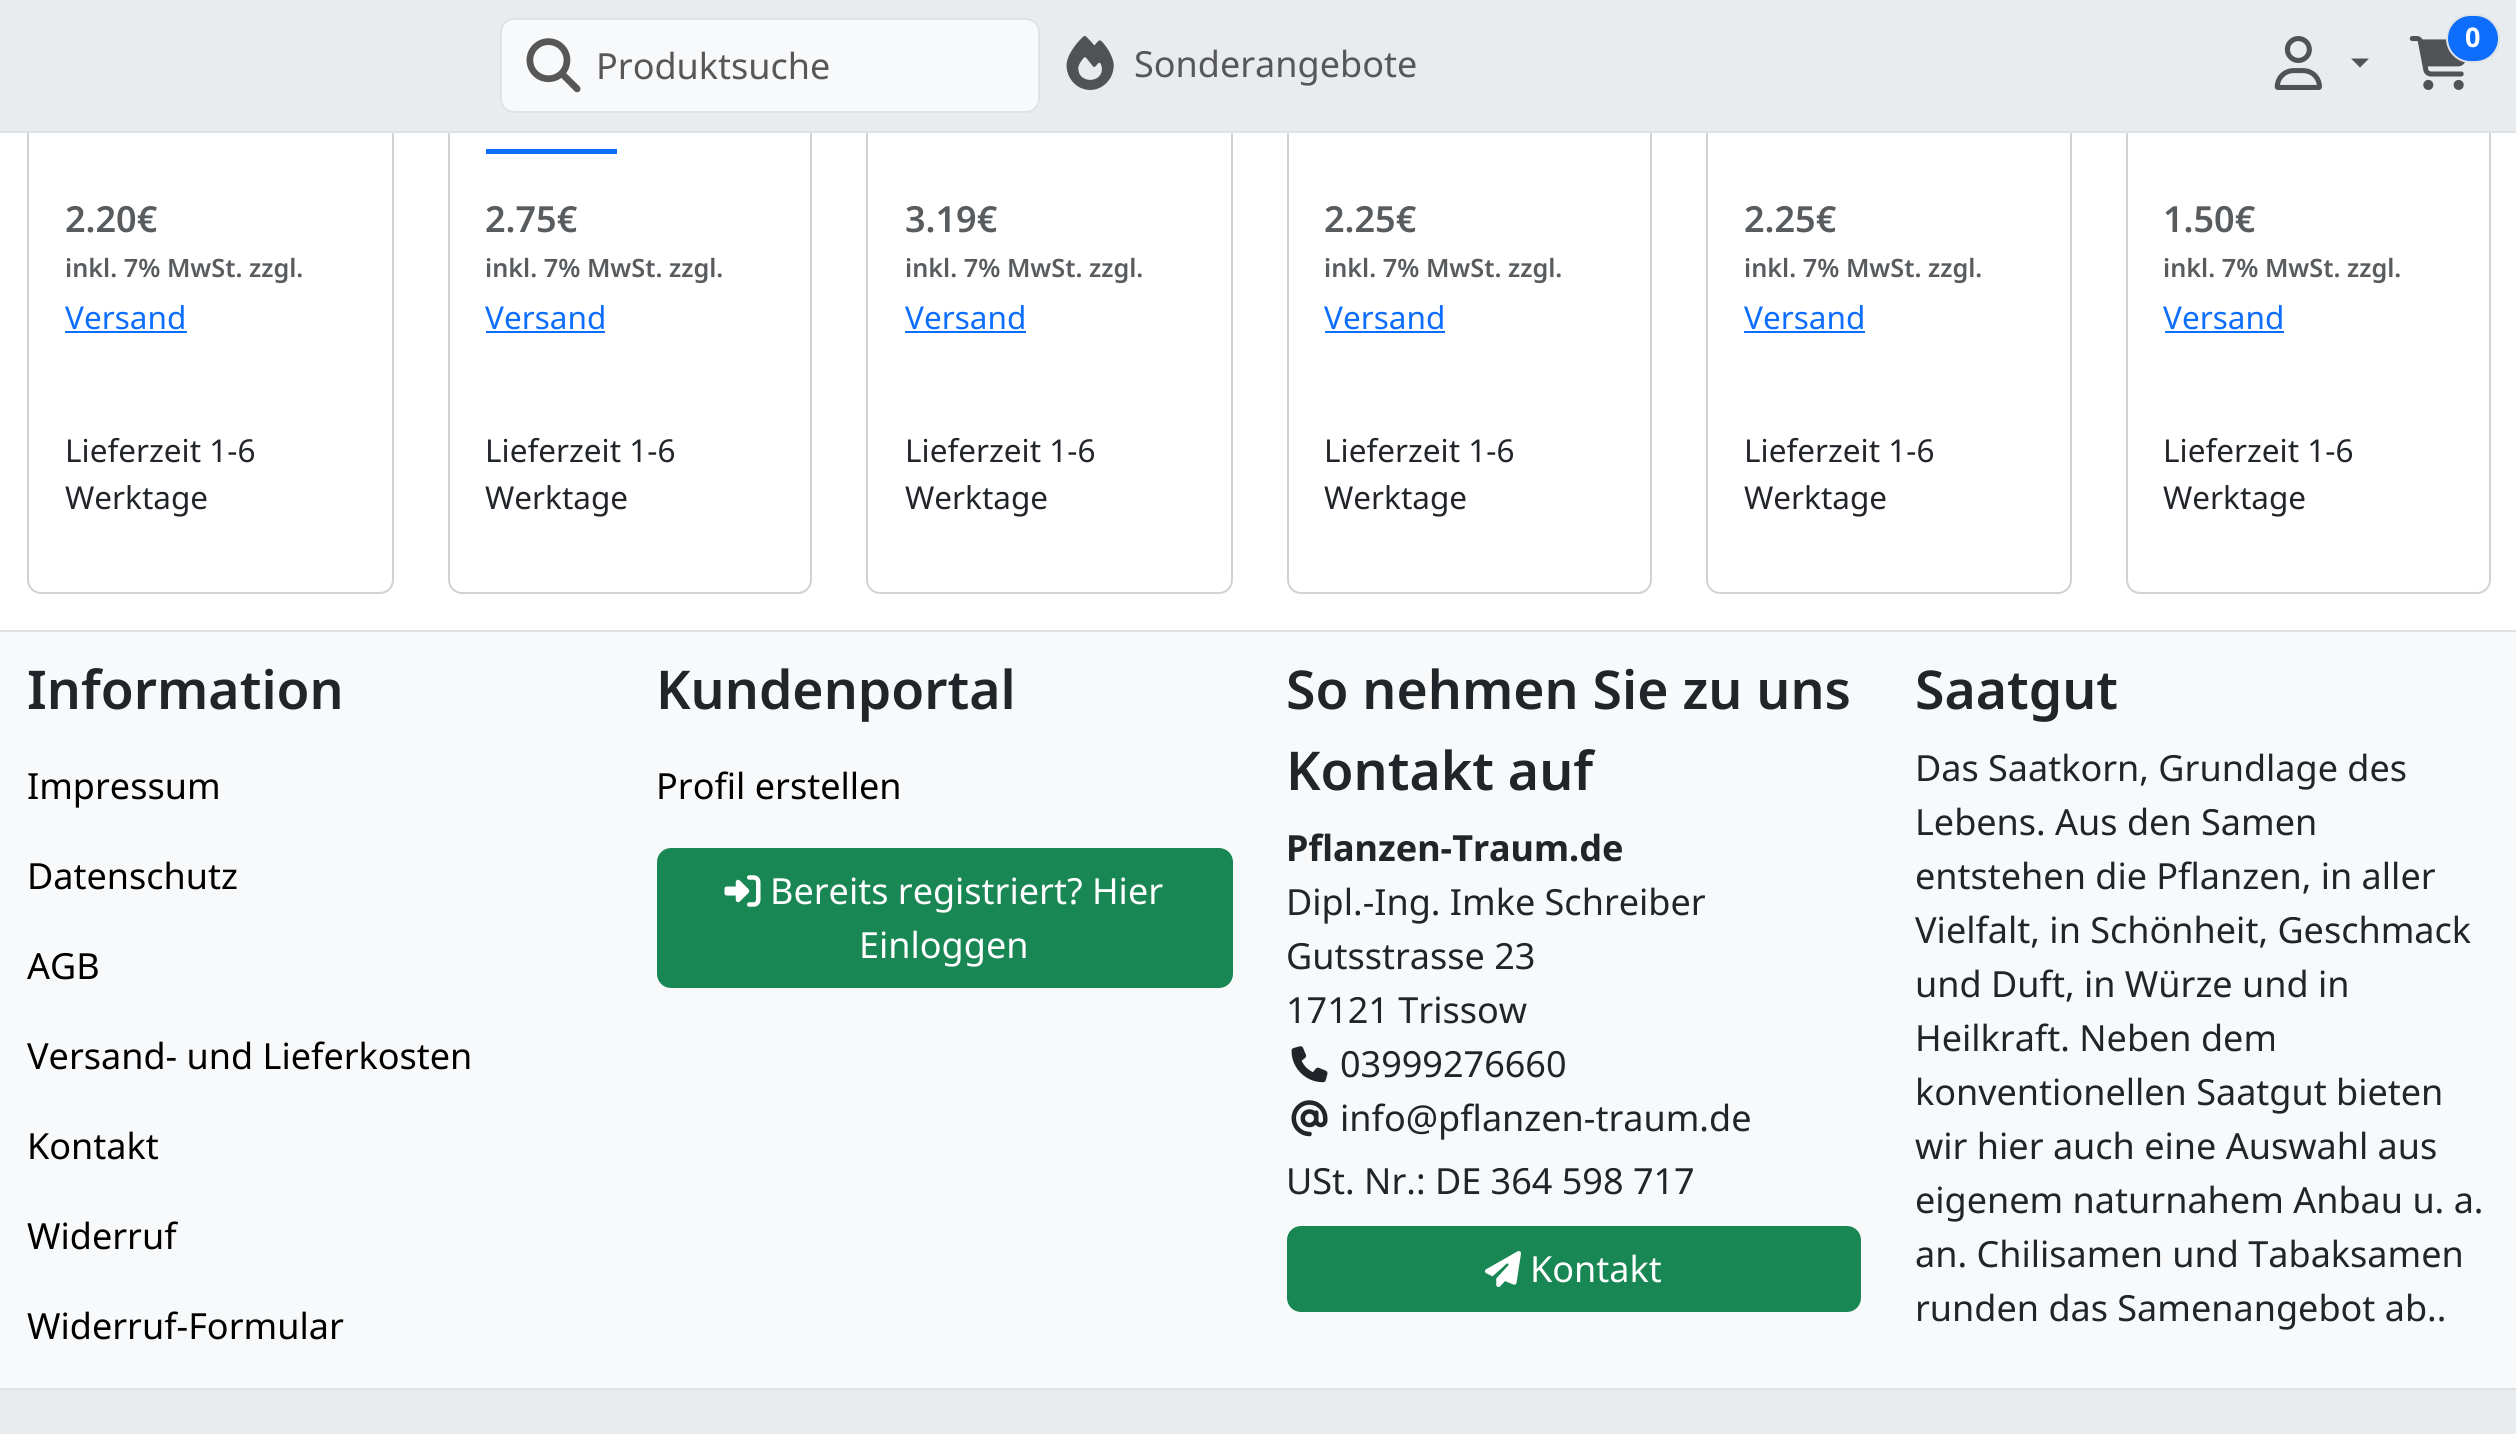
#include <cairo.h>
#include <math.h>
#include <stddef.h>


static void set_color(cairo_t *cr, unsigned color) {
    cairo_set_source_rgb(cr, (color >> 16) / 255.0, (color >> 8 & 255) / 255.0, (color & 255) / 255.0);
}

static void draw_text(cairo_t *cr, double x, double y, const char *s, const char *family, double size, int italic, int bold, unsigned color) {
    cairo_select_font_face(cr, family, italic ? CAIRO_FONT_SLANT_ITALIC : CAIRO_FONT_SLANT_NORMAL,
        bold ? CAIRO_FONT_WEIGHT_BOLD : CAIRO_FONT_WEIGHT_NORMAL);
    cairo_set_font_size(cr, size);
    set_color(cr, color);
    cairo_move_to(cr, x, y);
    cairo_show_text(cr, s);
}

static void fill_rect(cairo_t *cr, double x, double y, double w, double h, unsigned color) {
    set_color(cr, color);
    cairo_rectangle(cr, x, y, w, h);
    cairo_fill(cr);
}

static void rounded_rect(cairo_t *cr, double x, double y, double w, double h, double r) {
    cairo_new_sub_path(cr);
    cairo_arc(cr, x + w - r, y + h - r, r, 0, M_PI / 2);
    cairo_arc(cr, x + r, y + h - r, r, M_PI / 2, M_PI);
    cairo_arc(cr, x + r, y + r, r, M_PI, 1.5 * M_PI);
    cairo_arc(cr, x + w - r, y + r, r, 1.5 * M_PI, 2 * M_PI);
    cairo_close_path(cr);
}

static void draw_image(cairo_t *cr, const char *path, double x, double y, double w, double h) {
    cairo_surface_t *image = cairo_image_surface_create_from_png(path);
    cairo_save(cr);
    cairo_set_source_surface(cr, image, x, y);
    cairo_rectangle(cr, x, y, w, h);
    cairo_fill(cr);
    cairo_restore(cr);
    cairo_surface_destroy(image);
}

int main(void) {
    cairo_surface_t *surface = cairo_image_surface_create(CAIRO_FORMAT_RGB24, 2516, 1434);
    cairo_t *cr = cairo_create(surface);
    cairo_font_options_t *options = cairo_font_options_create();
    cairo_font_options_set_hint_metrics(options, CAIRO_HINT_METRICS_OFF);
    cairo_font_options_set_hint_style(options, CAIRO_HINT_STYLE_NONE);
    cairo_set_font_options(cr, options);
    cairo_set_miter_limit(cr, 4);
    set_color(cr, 0xFFFFFF);
    cairo_paint(cr);
    rounded_rect(cr, 28, -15, 365, 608, 13);
    set_color(cr, 0xD2D2D2);
    cairo_stroke(cr);
    rounded_rect(cr, 449, -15, 362, 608, 13);
    cairo_stroke(cr);
    rounded_rect(cr, 867, -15, 365, 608, 13);
    cairo_stroke(cr);
    rounded_rect(cr, 1288, -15, 363, 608, 13);
    cairo_stroke(cr);
    rounded_rect(cr, 1707, -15, 364, 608, 13);
    cairo_stroke(cr);
    rounded_rect(cr, 2127, -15, 363, 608, 13);
    cairo_stroke(cr);
    fill_rect(cr, 0, 0, 2516, 131, 0xE9ECEF);
    fill_rect(cr, 0, 131, 2516, 2, 0xDEE2E6);
    draw_image(cr, "assets/img1.png", 2274, 36, 48, 54);
    set_color(cr, 0x525354);
    cairo_new_path(cr);
    cairo_move_to(cr, 2351, 58.5);
    cairo_line_to(cr, 2369, 58.5);
    cairo_line_to(cr, 2360, 67.5);
    cairo_close_path(cr);
    cairo_fill(cr);
    draw_image(cr, "assets/img2.png", 2409, 36, 56, 54);
    set_color(cr, 0x0D6EFD);
    rounded_rect(cr, 2447, 15, 52, 47, 23.5);
    cairo_fill_preserve(cr);
    set_color(cr, 0xDEE2E6);
    cairo_stroke(cr);
    draw_text(cr, 2465, 47, "0", "Noto Sans", 27, 0, 1, 0xFFFFFF);
    set_color(cr, 0xF8F9FA);
    rounded_rect(cr, 501, 19, 538, 93, 13);
    cairo_fill_preserve(cr);
    set_color(cr, 0xDEE2E6);
    cairo_stroke(cr);
    draw_image(cr, "assets/img3.png", 526, 38, 55, 55);
    draw_text(cr, 596, 79, "Produktsuche", "Noto Sans", 36, 0, 0, 0x575758);
    draw_image(cr, "assets/img4.png", 1066, 36, 48, 54);
    draw_text(cr, 1134, 77, "Sonderangebote", "Noto Sans", 36, 0, 0, 0x575758);
    draw_text(cr, 65, 232, "2.20€", "Noto Sans SemiBold", 36, 0, 0, 0x595C5F);
    draw_text(cr, 65, 277, "inkl. 7% MwSt. zzgl.", "Noto Sans SemiBold", 25.25, 0, 0, 0x595C5F);
    draw_text(cr, 65, 329, "Versand", "Noto Sans", 31.5, 0, 0, 0x0D6EFD);
    fill_rect(cr, 65, 331, 122, 2, 0x0D6EFD);
    draw_text(cr, 65, 462, "Lieferzeit 1-6", "Noto Sans", 31.5, 0, 0, 0x212529);
    draw_text(cr, 65, 509, "Werktage", "Noto Sans", 31.5, 0, 0, 0x212529);
    fill_rect(cr, 486, 149, 131, 5, 0x0D6EFD);
    draw_text(cr, 485, 232, "2.75€", "Noto Sans SemiBold", 36, 0, 0, 0x595C5F);
    draw_text(cr, 485, 277, "inkl. 7% MwSt. zzgl.", "Noto Sans SemiBold", 25.25, 0, 0, 0x595C5F);
    draw_text(cr, 485, 329, "Versand", "Noto Sans", 31.5, 0, 0, 0x0D6EFD);
    fill_rect(cr, 486, 331, 119, 2, 0x0D6EFD);
    draw_text(cr, 485, 462, "Lieferzeit 1-6", "Noto Sans", 31.5, 0, 0, 0x212529);
    draw_text(cr, 485, 509, "Werktage", "Noto Sans", 31.5, 0, 0, 0x212529);
    draw_text(cr, 905, 232, "3.19€", "Noto Sans SemiBold", 36, 0, 0, 0x595C5F);
    draw_text(cr, 905, 277, "inkl. 7% MwSt. zzgl.", "Noto Sans SemiBold", 25.25, 0, 0, 0x595C5F);
    draw_text(cr, 905, 329, "Versand", "Noto Sans", 31.5, 0, 0, 0x0D6EFD);
    fill_rect(cr, 905, 331, 121, 2, 0x0D6EFD);
    draw_text(cr, 905, 462, "Lieferzeit 1-6", "Noto Sans", 31.5, 0, 0, 0x212529);
    draw_text(cr, 905, 509, "Werktage", "Noto Sans", 31.5, 0, 0, 0x212529);
    draw_text(cr, 1324, 232, "2.25€", "Noto Sans SemiBold", 36, 0, 0, 0x595C5F);
    draw_text(cr, 1324, 277, "inkl. 7% MwSt. zzgl.", "Noto Sans SemiBold", 25.25, 0, 0, 0x595C5F);
    draw_text(cr, 1324, 329, "Versand", "Noto Sans", 31.5, 0, 0, 0x0D6EFD);
    fill_rect(cr, 1325, 331, 120, 2, 0x0D6EFD);
    draw_text(cr, 1324, 462, "Lieferzeit 1-6", "Noto Sans", 31.5, 0, 0, 0x212529);
    draw_text(cr, 1324, 509, "Werktage", "Noto Sans", 31.5, 0, 0, 0x212529);
    draw_text(cr, 1744, 232, "2.25€", "Noto Sans SemiBold", 36, 0, 0, 0x595C5F);
    draw_text(cr, 1744, 277, "inkl. 7% MwSt. zzgl.", "Noto Sans SemiBold", 25.25, 0, 0, 0x595C5F);
    draw_text(cr, 1744, 329, "Versand", "Noto Sans", 31.5, 0, 0, 0x0D6EFD);
    fill_rect(cr, 1744, 331, 121, 2, 0x0D6EFD);
    draw_text(cr, 1744, 462, "Lieferzeit 1-6", "Noto Sans", 31.5, 0, 0, 0x212529);
    draw_text(cr, 1744, 509, "Werktage", "Noto Sans", 31.5, 0, 0, 0x212529);
    draw_text(cr, 2163, 232, "1.50€", "Noto Sans SemiBold", 36, 0, 0, 0x595C5F);
    draw_text(cr, 2163, 277, "inkl. 7% MwSt. zzgl.", "Noto Sans SemiBold", 25.25, 0, 0, 0x595C5F);
    draw_text(cr, 2163, 329, "Versand", "Noto Sans", 31.5, 0, 0, 0x0D6EFD);
    fill_rect(cr, 2165, 331, 119, 2, 0x0D6EFD);
    draw_text(cr, 2163, 462, "Lieferzeit 1-6", "Noto Sans", 31.5, 0, 0, 0x212529);
    draw_text(cr, 2163, 509, "Werktage", "Noto Sans", 31.5, 0, 0, 0x212529);
    fill_rect(cr, 0, 632, 2516, 756, 0xF8F9FA);
    fill_rect(cr, 0, 630, 2516, 2, 0xDEE2E6);
    draw_text(cr, 27, 709, "Information", "Noto Sans SemiBold", 53.5, 0, 0, 0x212529);
    draw_text(cr, 27, 799, "Impressum", "Noto Sans", 36, 0, 0, 0x000000);
    draw_text(cr, 27, 889, "Datenschutz", "Noto Sans", 36, 0, 0, 0x000000);
    draw_text(cr, 27, 979, "AGB", "Noto Sans", 36, 0, 0, 0x000000);
    draw_text(cr, 27, 1069, "Versand- und Lieferkosten", "Noto Sans", 36, 0, 0, 0x000000);
    draw_text(cr, 27, 1159, "Kontakt", "Noto Sans", 36, 0, 0, 0x000000);
    draw_text(cr, 27, 1249, "Widerruf", "Noto Sans", 36, 0, 0, 0x000000);
    draw_text(cr, 27, 1339, "Widerruf-Formular", "Noto Sans", 36, 0, 0, 0x000000);
    draw_text(cr, 656, 709, "Kundenportal", "Noto Sans SemiBold", 53.5, 0, 0, 0x212529);
    draw_text(cr, 656, 799, "Profil erstellen", "Noto Sans", 36, 0, 0, 0x000000);
    set_color(cr, 0x198754);
    rounded_rect(cr, 658, 849, 574, 138, 13);
    cairo_fill_preserve(cr);
    cairo_stroke(cr);
    draw_image(cr, "assets/img5.png", 724, 875, 37, 32);
    draw_text(cr, 770, 904, "Bereits registriert? Hier", "Noto Sans", 36, 0, 0, 0xFFFFFF);
    draw_text(cr, 859, 958, "Einloggen", "Noto Sans", 36, 0, 0, 0xFFFFFF);
    draw_text(cr, 1286, 709, "So nehmen Sie zu uns", "Noto Sans SemiBold", 53.5, 0, 0, 0x212529);
    draw_text(cr, 1286, 790, "Kontakt auf", "Noto Sans SemiBold", 53.5, 0, 0, 0x212529);
    draw_text(cr, 1286, 861, "Pflanzen-Traum.de", "Noto Sans", 36, 0, 1, 0x212529);
    draw_text(cr, 1286, 915, "Dipl.-Ing. Imke Schreiber", "Noto Sans", 36, 0, 0, 0x212529);
    draw_text(cr, 1286, 969, "Gutsstrasse 23", "Noto Sans", 36, 0, 0, 0x212529);
    draw_text(cr, 1286, 1023, "17121 Trissow", "Noto Sans", 36, 0, 0, 0x212529);
    draw_image(cr, "assets/img6.png", 1291, 1046, 37, 37);
    draw_text(cr, 1340, 1077, "03999276660", "Noto Sans", 36, 0, 0, 0x212529);
    draw_image(cr, "assets/img7.png", 1291, 1100, 37, 37);
    draw_text(cr, 1340, 1131, "info@pflanzen-traum.de", "Noto Sans", 36, 0, 0, 0x212529);
    draw_text(cr, 1286, 1194, "USt. Nr.: DE 364 598 717", "Noto Sans", 36, 0, 0, 0x212529);
    set_color(cr, 0x198754);
    rounded_rect(cr, 1288, 1227, 572, 84, 13);
    cairo_fill_preserve(cr);
    cairo_stroke(cr);
    draw_image(cr, "assets/img8.png", 1485, 1251, 36, 36);
    draw_text(cr, 1530, 1282, "Kontakt", "Noto Sans", 36, 0, 0, 0xFFFFFF);
    draw_text(cr, 1915, 709, "Saatgut", "Noto Sans SemiBold", 53.5, 0, 0, 0x212529);
    draw_text(cr, 1915, 781, "Das Saatkorn, Grundlage des", "Noto Sans", 36, 0, 0, 0x212529);
    draw_text(cr, 1915, 835, "Lebens. Aus den Samen", "Noto Sans", 36, 0, 0, 0x212529);
    draw_text(cr, 1915, 889, "entstehen die Pflanzen, in aller", "Noto Sans", 36, 0, 0, 0x212529);
    draw_text(cr, 1915, 943, "Vielfalt, in Schönheit, Geschmack", "Noto Sans", 36, 0, 0, 0x212529);
    draw_text(cr, 1915, 997, "und Duft, in Würze und in", "Noto Sans", 36, 0, 0, 0x212529);
    draw_text(cr, 1915, 1051, "Heilkraft. Neben dem", "Noto Sans", 36, 0, 0, 0x212529);
    draw_text(cr, 1915, 1105, "konventionellen Saatgut bieten", "Noto Sans", 36, 0, 0, 0x212529);
    draw_text(cr, 1915, 1159, "wir hier auch eine Auswahl aus", "Noto Sans", 36, 0, 0, 0x212529);
    draw_text(cr, 1915, 1213, "eigenem naturnahem Anbau u. a.", "Noto Sans", 36, 0, 0, 0x212529);
    draw_text(cr, 1915, 1267, "an. Chilisamen und Tabaksamen", "Noto Sans", 36, 0, 0, 0x212529);
    draw_text(cr, 1915, 1321, "runden das Samenangebot ab..", "Noto Sans", 36, 0, 0, 0x212529);
    fill_rect(cr, 0, 1390, 2516, 44, 0xE9ECEF);
    fill_rect(cr, 0, 1388, 2516, 2, 0xDEE2E6);
    cairo_surface_write_to_png(surface, "output.png");
    cairo_font_options_destroy(options);
    cairo_destroy(cr);
    cairo_surface_destroy(surface);
    return 0;
}
